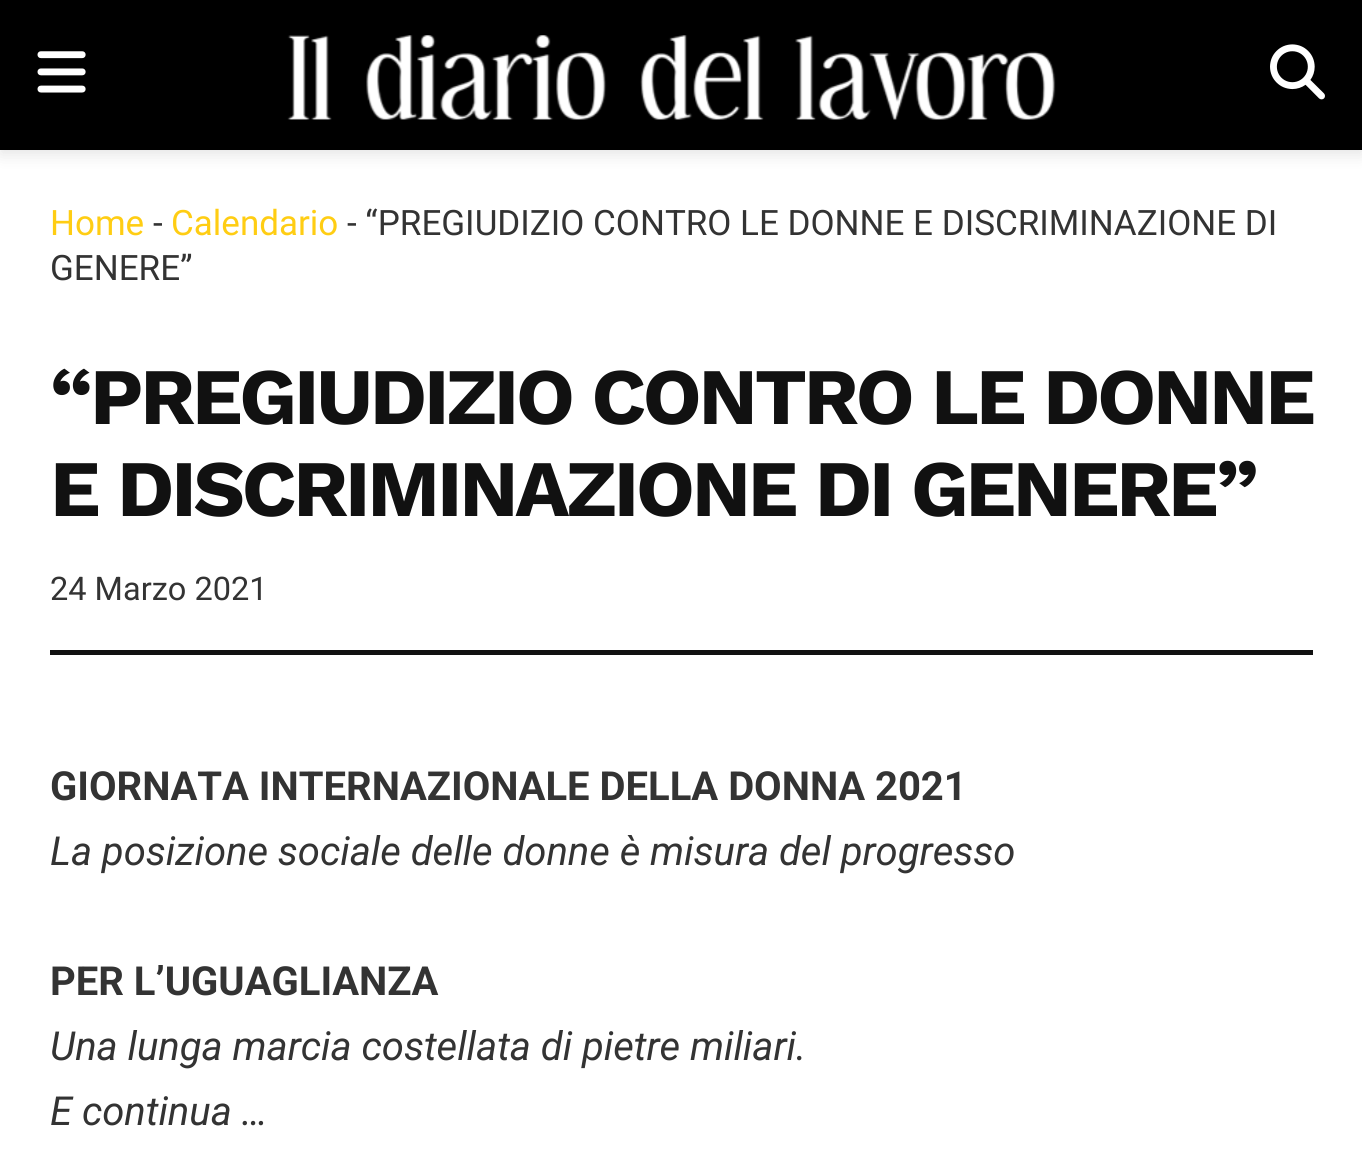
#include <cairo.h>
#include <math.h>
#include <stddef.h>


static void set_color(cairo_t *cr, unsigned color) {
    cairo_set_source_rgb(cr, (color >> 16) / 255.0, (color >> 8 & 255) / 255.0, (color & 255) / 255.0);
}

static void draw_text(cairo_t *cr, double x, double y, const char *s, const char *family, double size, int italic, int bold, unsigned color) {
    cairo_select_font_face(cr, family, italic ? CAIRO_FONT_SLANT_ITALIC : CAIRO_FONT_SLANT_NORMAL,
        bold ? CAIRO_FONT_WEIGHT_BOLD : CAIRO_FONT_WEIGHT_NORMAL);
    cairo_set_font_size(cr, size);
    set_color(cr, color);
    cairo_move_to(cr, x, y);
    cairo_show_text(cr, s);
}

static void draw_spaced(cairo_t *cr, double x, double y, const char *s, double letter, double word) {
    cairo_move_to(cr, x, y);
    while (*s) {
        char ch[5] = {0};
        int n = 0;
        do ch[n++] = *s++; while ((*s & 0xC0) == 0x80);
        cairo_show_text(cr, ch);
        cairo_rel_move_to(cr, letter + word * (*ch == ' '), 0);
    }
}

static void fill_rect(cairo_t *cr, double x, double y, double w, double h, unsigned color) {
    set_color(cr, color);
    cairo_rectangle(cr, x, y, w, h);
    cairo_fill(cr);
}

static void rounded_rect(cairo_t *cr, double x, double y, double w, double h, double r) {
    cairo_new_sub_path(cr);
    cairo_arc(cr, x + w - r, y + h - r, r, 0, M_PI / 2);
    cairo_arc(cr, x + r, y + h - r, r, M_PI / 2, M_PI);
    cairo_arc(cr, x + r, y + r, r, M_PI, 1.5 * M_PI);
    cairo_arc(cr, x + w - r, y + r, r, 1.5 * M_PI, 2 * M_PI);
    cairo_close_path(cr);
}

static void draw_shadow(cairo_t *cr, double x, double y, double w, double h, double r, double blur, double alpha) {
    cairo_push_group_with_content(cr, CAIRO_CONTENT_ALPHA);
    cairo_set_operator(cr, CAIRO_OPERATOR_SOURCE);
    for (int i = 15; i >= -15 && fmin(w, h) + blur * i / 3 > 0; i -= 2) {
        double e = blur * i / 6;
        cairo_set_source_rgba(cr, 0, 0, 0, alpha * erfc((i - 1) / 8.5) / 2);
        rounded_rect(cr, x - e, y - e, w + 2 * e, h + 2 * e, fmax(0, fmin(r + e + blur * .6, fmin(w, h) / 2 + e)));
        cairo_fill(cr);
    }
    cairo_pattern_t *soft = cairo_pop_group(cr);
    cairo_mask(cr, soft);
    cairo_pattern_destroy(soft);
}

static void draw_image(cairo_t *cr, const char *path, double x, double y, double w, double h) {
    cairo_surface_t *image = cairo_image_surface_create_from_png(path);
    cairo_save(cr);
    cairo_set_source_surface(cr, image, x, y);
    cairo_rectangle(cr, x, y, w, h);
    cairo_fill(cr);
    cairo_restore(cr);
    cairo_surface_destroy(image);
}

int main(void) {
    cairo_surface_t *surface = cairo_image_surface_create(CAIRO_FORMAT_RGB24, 1362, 1152);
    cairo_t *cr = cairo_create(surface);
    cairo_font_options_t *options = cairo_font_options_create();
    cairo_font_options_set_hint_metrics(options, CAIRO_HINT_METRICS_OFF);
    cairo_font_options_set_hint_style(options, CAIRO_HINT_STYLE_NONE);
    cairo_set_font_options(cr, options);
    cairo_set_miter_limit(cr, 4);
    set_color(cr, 0xFFFFFF);
    cairo_paint(cr);
    set_color(cr, 0x000000);
    draw_shadow(cr, 0, 5, 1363, 150, 0, 7.5, 0.1);
    fill_rect(cr, 0, 0, 1362, 150, 0x000000);
    draw_image(cr, "assets/img1.png", 37, 51, 49, 42);
    draw_image(cr, "assets/img2.png", 287, 35, 769, 85);
    draw_image(cr, "assets/img3.png", 1270, 44, 55, 56);
    draw_text(cr, 50, 235, "Home", "Roboto", 35, 0, 0, 0xFFCD13);
    draw_text(cr, 153, 235, "-", "Roboto", 35, 0, 0, 0x333333);
    draw_text(cr, 171, 235, "Calendario", "Roboto", 35, 0, 0, 0xFFCD13);
    draw_text(cr, 347, 235, "- “PREGIUDIZIO CONTRO LE DONNE E DISCRIMINAZIONE DI", "Roboto", 35, 0, 0, 0x333333);
    draw_text(cr, 50, 280, "GENERE”", "Roboto", 35, 0, 0, 0x333333);
    fill_rect(cr, 50, 650, 1263, 5, 0x111111);
    cairo_select_font_face(cr, "Work Sans", CAIRO_FONT_SLANT_NORMAL, CAIRO_FONT_WEIGHT_BOLD);
    cairo_set_font_size(cr, 80);
    draw_spaced(cr, 50, 424, "“PREGIUDIZIO CONTRO LE DONNE", -3.2, 0);
    draw_spaced(cr, 50, 516, "E DISCRIMINAZIONE DI GENERE”", -3.2, 0);
    draw_text(cr, 50, 600, "24 Marzo 2021", "Roboto", 32.5, 0, 0, 0x333333);
    draw_text(cr, 50, 800, "GIORNATA INTERNAZIONALE DELLA DONNA 2021", "Roboto", 40, 0, 1, 0x333333);
    draw_text(cr, 50, 865, "La posizione sociale delle donne è misura del progresso", "Roboto", 40, 1, 0, 0x333333);
    draw_text(cr, 50, 995, "PER L’UGUAGLIANZA", "Roboto", 40, 0, 1, 0x333333);
    draw_text(cr, 50, 1060, "Una lunga marcia costellata di pietre miliari.", "Roboto", 40, 1, 0, 0x333333);
    draw_text(cr, 50, 1125, "E continua …", "Roboto", 40, 1, 0, 0x333333);
    cairo_surface_write_to_png(surface, "output.png");
    cairo_font_options_destroy(options);
    cairo_destroy(cr);
    cairo_surface_destroy(surface);
    return 0;
}
